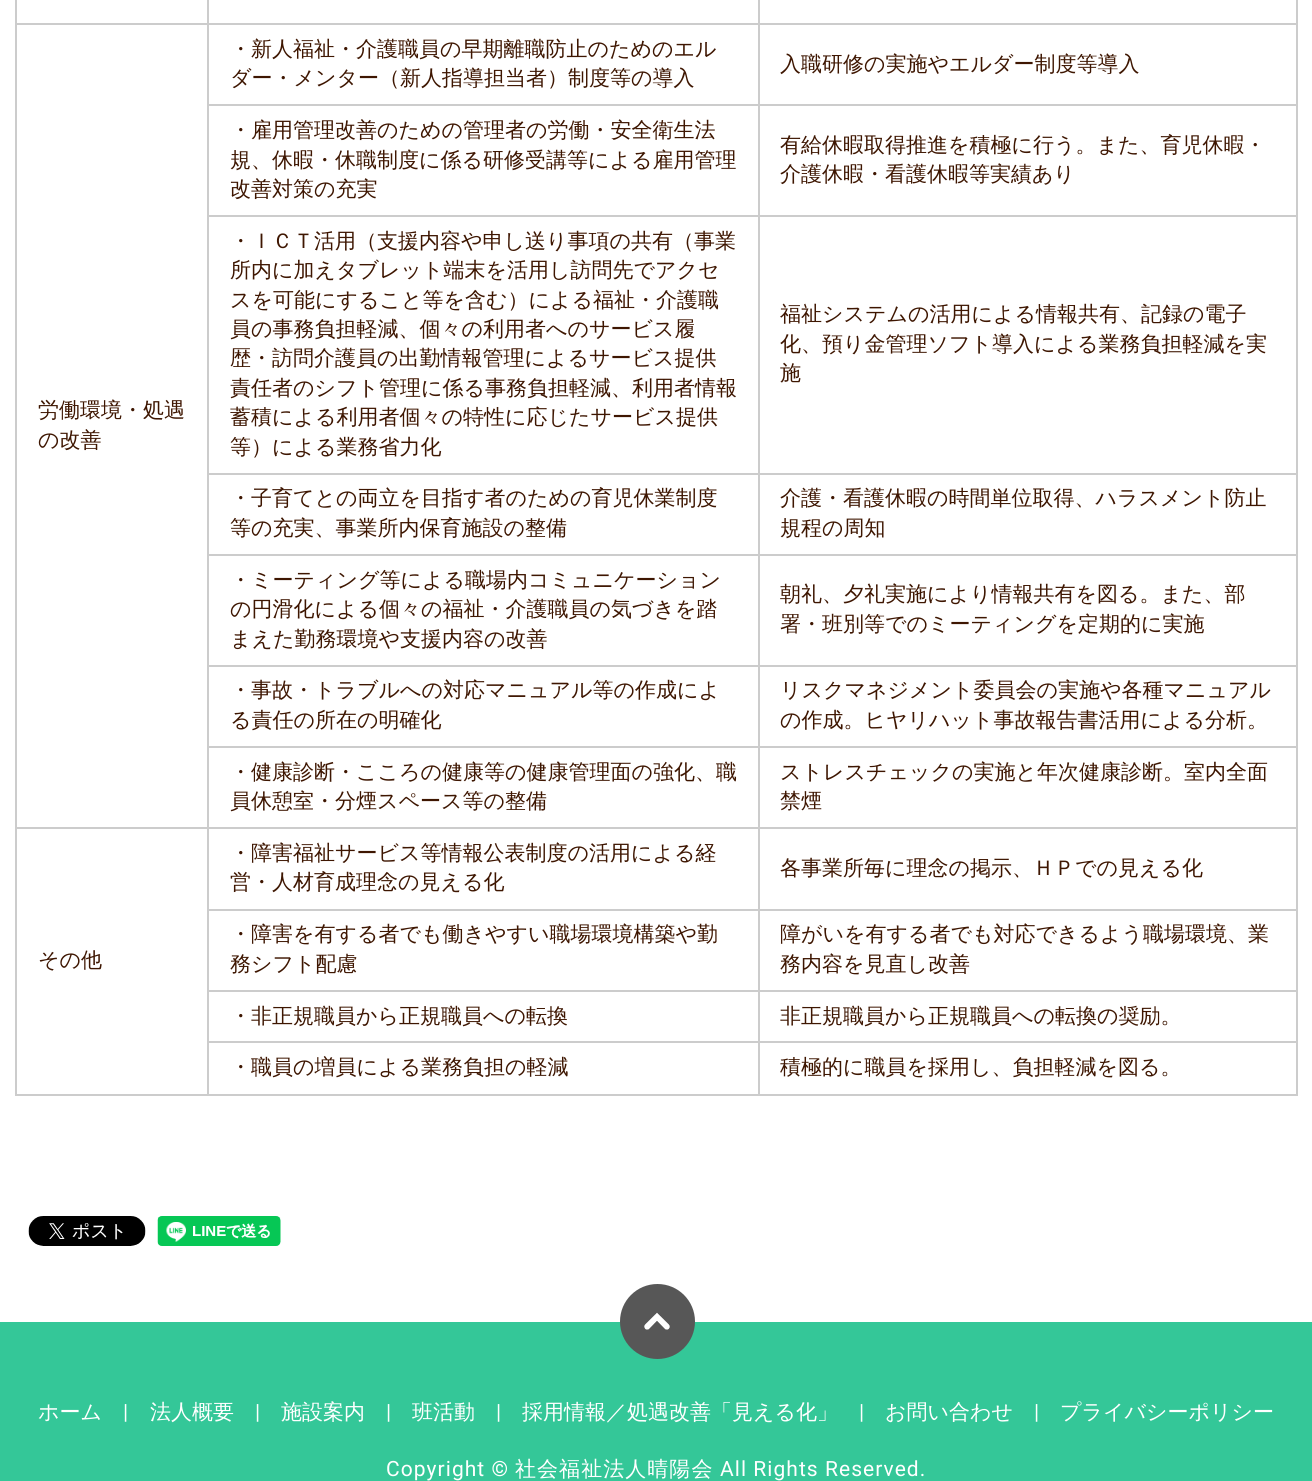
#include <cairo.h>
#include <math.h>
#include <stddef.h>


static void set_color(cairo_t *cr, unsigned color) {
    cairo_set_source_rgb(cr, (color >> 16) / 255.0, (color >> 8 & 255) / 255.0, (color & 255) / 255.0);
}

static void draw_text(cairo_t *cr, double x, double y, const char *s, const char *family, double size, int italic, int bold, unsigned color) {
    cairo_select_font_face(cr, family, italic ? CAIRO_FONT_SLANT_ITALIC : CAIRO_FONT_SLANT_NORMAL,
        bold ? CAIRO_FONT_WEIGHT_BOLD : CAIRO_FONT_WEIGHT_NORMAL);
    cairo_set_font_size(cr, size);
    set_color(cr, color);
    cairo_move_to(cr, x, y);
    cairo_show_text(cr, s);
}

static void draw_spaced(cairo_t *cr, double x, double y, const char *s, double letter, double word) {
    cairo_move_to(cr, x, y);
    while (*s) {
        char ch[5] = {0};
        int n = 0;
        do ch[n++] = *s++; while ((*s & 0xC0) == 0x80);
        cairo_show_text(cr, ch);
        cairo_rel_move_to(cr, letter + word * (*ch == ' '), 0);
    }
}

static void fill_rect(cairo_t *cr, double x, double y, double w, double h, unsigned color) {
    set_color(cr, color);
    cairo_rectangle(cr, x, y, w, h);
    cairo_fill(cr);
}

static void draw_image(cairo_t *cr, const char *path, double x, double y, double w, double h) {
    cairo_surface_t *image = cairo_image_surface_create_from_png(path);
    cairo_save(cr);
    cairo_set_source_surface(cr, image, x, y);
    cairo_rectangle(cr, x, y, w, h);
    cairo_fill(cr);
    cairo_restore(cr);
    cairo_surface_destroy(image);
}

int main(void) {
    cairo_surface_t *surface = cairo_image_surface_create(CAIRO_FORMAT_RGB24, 1312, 1481);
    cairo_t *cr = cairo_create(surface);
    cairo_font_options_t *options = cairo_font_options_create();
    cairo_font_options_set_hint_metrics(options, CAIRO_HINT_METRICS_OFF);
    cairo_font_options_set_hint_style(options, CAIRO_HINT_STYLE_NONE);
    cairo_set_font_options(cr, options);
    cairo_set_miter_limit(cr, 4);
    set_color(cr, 0xFFFFFF);
    cairo_paint(cr);
    fill_rect(cr, 758, 23, 540, 2, 0xCCCCCC);
    fill_rect(cr, 758, 104, 540, 2, 0xCCCCCC);
    fill_rect(cr, 758, 215, 540, 2, 0xCCCCCC);
    fill_rect(cr, 758, 473, 540, 2, 0xCCCCCC);
    fill_rect(cr, 758, 554, 540, 2, 0xCCCCCC);
    fill_rect(cr, 758, 665, 540, 2, 0xCCCCCC);
    fill_rect(cr, 758, 746, 540, 2, 0xCCCCCC);
    fill_rect(cr, 758, 827, 540, 2, 0xCCCCCC);
    fill_rect(cr, 758, 909, 540, 2, 0xCCCCCC);
    fill_rect(cr, 758, 990, 540, 2, 0xCCCCCC);
    fill_rect(cr, 758, 1041, 540, 2, 0xCCCCCC);
    fill_rect(cr, 1296, 1041, 2, 54, 0xCCCCCC);
    fill_rect(cr, 758, 1094, 540, 2, 0xCCCCCC);
    fill_rect(cr, 758, 1041, 2, 54, 0xCCCCCC);
    fill_rect(cr, 207, 1041, 552, 2, 0xCCCCCC);
    fill_rect(cr, 758, 990, 2, 53, 0xCCCCCC);
    fill_rect(cr, 207, 990, 552, 2, 0xCCCCCC);
    fill_rect(cr, 758, 909, 2, 83, 0xCCCCCC);
    fill_rect(cr, 207, 909, 552, 2, 0xCCCCCC);
    fill_rect(cr, 758, 827, 2, 84, 0xCCCCCC);
    fill_rect(cr, 207, 827, 552, 2, 0xCCCCCC);
    fill_rect(cr, 758, 746, 2, 82, 0xCCCCCC);
    fill_rect(cr, 207, 746, 552, 2, 0xCCCCCC);
    fill_rect(cr, 758, 665, 2, 82, 0xCCCCCC);
    fill_rect(cr, 207, 665, 552, 2, 0xCCCCCC);
    fill_rect(cr, 758, 554, 2, 112, 0xCCCCCC);
    fill_rect(cr, 207, 554, 552, 2, 0xCCCCCC);
    fill_rect(cr, 758, 473, 2, 82, 0xCCCCCC);
    fill_rect(cr, 207, 473, 552, 2, 0xCCCCCC);
    fill_rect(cr, 758, 215, 2, 259, 0xCCCCCC);
    fill_rect(cr, 207, 215, 552, 2, 0xCCCCCC);
    fill_rect(cr, 758, 104, 2, 112, 0xCCCCCC);
    fill_rect(cr, 207, 104, 552, 2, 0xCCCCCC);
    fill_rect(cr, 758, 23, 2, 82, 0xCCCCCC);
    fill_rect(cr, 207, 23, 552, 2, 0xCCCCCC);
    fill_rect(cr, 207, 1094, 552, 2, 0xCCCCCC);
    fill_rect(cr, 207, 1041, 2, 54, 0xCCCCCC);
    fill_rect(cr, 207, 990, 2, 53, 0xCCCCCC);
    fill_rect(cr, 207, 909, 2, 83, 0xCCCCCC);
    fill_rect(cr, 207, 827, 2, 84, 0xCCCCCC);
    fill_rect(cr, 15, 827, 194, 2, 0xCCCCCC);
    fill_rect(cr, 207, 746, 2, 82, 0xCCCCCC);
    fill_rect(cr, 207, 665, 2, 82, 0xCCCCCC);
    fill_rect(cr, 207, 554, 2, 112, 0xCCCCCC);
    fill_rect(cr, 207, 473, 2, 82, 0xCCCCCC);
    fill_rect(cr, 207, 215, 2, 259, 0xCCCCCC);
    fill_rect(cr, 207, 104, 2, 112, 0xCCCCCC);
    fill_rect(cr, 207, 23, 2, 82, 0xCCCCCC);
    fill_rect(cr, 15, 23, 194, 2, 0xCCCCCC);
    fill_rect(cr, 207, 0, 2, 24, 0xCCCCCC);
    fill_rect(cr, 758, 0, 2, 24, 0xCCCCCC);
    draw_text(cr, 230, 56, "・新人福祉・介護職員の早期離職防止のためのエル", "WenQuanYi Zen Hei Medium", 21, 0, 0, 0x3E1601);
    draw_text(cr, 230, 85, "ダー・メンター（新人指導担当者）制度等の導入", "WenQuanYi Zen Hei Medium", 21, 0, 0, 0x3E1601);
    fill_rect(cr, 1296, 990, 2, 53, 0xCCCCCC);
    fill_rect(cr, 1296, 909, 2, 83, 0xCCCCCC);
    fill_rect(cr, 1296, 827, 2, 84, 0xCCCCCC);
    fill_rect(cr, 1296, 746, 2, 82, 0xCCCCCC);
    fill_rect(cr, 1296, 665, 2, 82, 0xCCCCCC);
    fill_rect(cr, 1296, 554, 2, 112, 0xCCCCCC);
    fill_rect(cr, 1296, 473, 2, 82, 0xCCCCCC);
    fill_rect(cr, 1296, 215, 2, 259, 0xCCCCCC);
    fill_rect(cr, 1296, 104, 2, 112, 0xCCCCCC);
    fill_rect(cr, 1296, 0, 2, 105, 0xCCCCCC);
    draw_text(cr, 780, 71, "入職研修の実施やエルダー制度等導入", "WenQuanYi Zen Hei Medium", 21, 0, 0, 0x3E1601);
    fill_rect(cr, 15, 1094, 194, 2, 0xCCCCCC);
    fill_rect(cr, 15, 827, 2, 268, 0xCCCCCC);
    fill_rect(cr, 15, 0, 2, 828, 0xCCCCCC);
    draw_text(cr, 38, 417, "労働環境・処遇", "WenQuanYi Zen Hei Medium", 21, 0, 0, 0x3E1601);
    draw_text(cr, 38, 447, "の改善", "WenQuanYi Zen Hei Medium", 21, 0, 0, 0x3E1601);
    draw_text(cr, 230, 137, "・雇用管理改善のための管理者の労働・安全衛生法", "WenQuanYi Zen Hei Medium", 21, 0, 0, 0x3E1601);
    draw_text(cr, 230, 167, "規、休暇・休職制度に係る研修受講等による雇用管理", "WenQuanYi Zen Hei Medium", 21, 0, 0, 0x3E1601);
    draw_text(cr, 230, 196, "改善対策の充実", "WenQuanYi Zen Hei Medium", 21, 0, 0, 0x3E1601);
    draw_text(cr, 780, 152, "有給休暇取得推進を積極に行う。また、育児休暇・", "WenQuanYi Zen Hei Medium", 21, 0, 0, 0x3E1601);
    draw_text(cr, 780, 181, "介護休暇・看護休暇等実績あり", "WenQuanYi Zen Hei Medium", 21, 0, 0, 0x3E1601);
    draw_text(cr, 230, 248, "・ＩＣＴ活用（支援内容や申し送り事項の共有（事業", "WenQuanYi Zen Hei Medium", 21, 0, 0, 0x3E1601);
    draw_text(cr, 230, 277, "所内に加えタブレット端末を活用し訪問先でアクセ", "WenQuanYi Zen Hei Medium", 21, 0, 0, 0x3E1601);
    draw_text(cr, 230, 307, "スを可能にすること等を含む）による福祉・介護職", "WenQuanYi Zen Hei Medium", 21, 0, 0, 0x3E1601);
    draw_text(cr, 230, 336, "員の事務負担軽減、個々の利用者へのサービス履", "WenQuanYi Zen Hei Medium", 21, 0, 0, 0x3E1601);
    draw_text(cr, 230, 365, "歴・訪問介護員の出勤情報管理によるサービス提供", "WenQuanYi Zen Hei Medium", 21, 0, 0, 0x3E1601);
    draw_text(cr, 230, 395, "責任者のシフト管理に係る事務負担軽減、利用者情報", "WenQuanYi Zen Hei Medium", 21, 0, 0, 0x3E1601);
    draw_text(cr, 230, 424, "蓄積による利用者個々の特性に応じたサービス提供", "WenQuanYi Zen Hei Medium", 21, 0, 0, 0x3E1601);
    draw_text(cr, 230, 454, "等）による業務省力化", "WenQuanYi Zen Hei Medium", 21, 0, 0, 0x3E1601);
    draw_text(cr, 780, 321, "福祉システムの活用による情報共有、記録の電子", "WenQuanYi Zen Hei Medium", 21, 0, 0, 0x3E1601);
    draw_text(cr, 780, 351, "化、預り金管理ソフト導入による業務負担軽減を実", "WenQuanYi Zen Hei Medium", 21, 0, 0, 0x3E1601);
    draw_text(cr, 780, 380, "施", "WenQuanYi Zen Hei Medium", 21, 0, 0, 0x3E1601);
    draw_text(cr, 230, 505, "・子育てとの両立を目指す者のための育児休業制度", "WenQuanYi Zen Hei Medium", 21, 0, 0, 0x3E1601);
    draw_text(cr, 230, 535, "等の充実、事業所内保育施設の整備", "WenQuanYi Zen Hei Medium", 21, 0, 0, 0x3E1601);
    draw_text(cr, 780, 505, "介護・看護休暇の時間単位取得、ハラスメント防止", "WenQuanYi Zen Hei Medium", 21, 0, 0, 0x3E1601);
    draw_text(cr, 780, 535, "規程の周知", "WenQuanYi Zen Hei Medium", 21, 0, 0, 0x3E1601);
    draw_text(cr, 230, 587, "・ミーティング等による職場内コミュニケーション", "WenQuanYi Zen Hei Medium", 21, 0, 0, 0x3E1601);
    draw_text(cr, 230, 616, "の円滑化による個々の福祉・介護職員の気づきを踏", "WenQuanYi Zen Hei Medium", 21, 0, 0, 0x3E1601);
    draw_text(cr, 230, 646, "まえた勤務環境や支援内容の改善", "WenQuanYi Zen Hei Medium", 21, 0, 0, 0x3E1601);
    draw_text(cr, 780, 601, "朝礼、夕礼実施により情報共有を図る。また、部", "WenQuanYi Zen Hei Medium", 21, 0, 0, 0x3E1601);
    draw_text(cr, 780, 631, "署・班別等でのミーティングを定期的に実施", "WenQuanYi Zen Hei Medium", 21, 0, 0, 0x3E1601);
    draw_text(cr, 230, 697, "・事故・トラブルへの対応マニュアル等の作成によ", "WenQuanYi Zen Hei Medium", 21, 0, 0, 0x3E1601);
    draw_text(cr, 230, 727, "る責任の所在の明確化", "WenQuanYi Zen Hei Medium", 21, 0, 0, 0x3E1601);
    draw_text(cr, 780, 697, "リスクマネジメント委員会の実施や各種マニュアル", "WenQuanYi Zen Hei Medium", 21, 0, 0, 0x3E1601);
    draw_text(cr, 780, 727, "の作成。ヒヤリハット事故報告書活用による分析。", "WenQuanYi Zen Hei Medium", 21, 0, 0, 0x3E1601);
    draw_text(cr, 230, 779, "・健康診断・こころの健康等の健康管理面の強化、職", "WenQuanYi Zen Hei Medium", 21, 0, 0, 0x3E1601);
    draw_text(cr, 230, 808, "員休憩室・分煙スペース等の整備", "WenQuanYi Zen Hei Medium", 21, 0, 0, 0x3E1601);
    draw_text(cr, 780, 779, "ストレスチェックの実施と年次健康診断。室内全面", "WenQuanYi Zen Hei Medium", 21, 0, 0, 0x3E1601);
    draw_text(cr, 780, 808, "禁煙", "WenQuanYi Zen Hei Medium", 21, 0, 0, 0x3E1601);
    draw_text(cr, 230, 860, "・障害福祉サービス等情報公表制度の活用による経", "WenQuanYi Zen Hei Medium", 21, 0, 0, 0x3E1601);
    draw_text(cr, 230, 889, "営・人材育成理念の見える化", "WenQuanYi Zen Hei Medium", 21, 0, 0, 0x3E1601);
    draw_text(cr, 780, 875, "各事業所毎に理念の掲示、ＨＰでの見える化", "WenQuanYi Zen Hei Medium", 21, 0, 0, 0x3E1601);
    draw_text(cr, 38, 967, "その他", "WenQuanYi Zen Hei Medium", 21, 0, 0, 0x3E1601);
    draw_text(cr, 230, 941, "・障害を有する者でも働きやすい職場環境構築や勤", "WenQuanYi Zen Hei Medium", 21, 0, 0, 0x3E1601);
    draw_text(cr, 230, 971, "務シフト配慮", "WenQuanYi Zen Hei Medium", 21, 0, 0, 0x3E1601);
    draw_text(cr, 780, 941, "障がいを有する者でも対応できるよう職場環境、業", "WenQuanYi Zen Hei Medium", 21, 0, 0, 0x3E1601);
    draw_text(cr, 780, 971, "務内容を見直し改善", "WenQuanYi Zen Hei Medium", 21, 0, 0, 0x3E1601);
    draw_text(cr, 230, 1023, "・非正規職員から正規職員への転換", "WenQuanYi Zen Hei Medium", 21, 0, 0, 0x3E1601);
    draw_text(cr, 780, 1023, "非正規職員から正規職員への転換の奨励。", "WenQuanYi Zen Hei Medium", 21, 0, 0, 0x3E1601);
    draw_text(cr, 230, 1074, "・職員の増員による業務負担の軽減", "WenQuanYi Zen Hei Medium", 21, 0, 0, 0x3E1601);
    draw_text(cr, 780, 1074, "積極的に職員を採用し、負担軽減を図る。", "WenQuanYi Zen Hei Medium", 21, 0, 0, 0x3E1601);
    draw_image(cr, "assets/img1.png", 28, 1216, 118, 30);
    draw_image(cr, "assets/img2.png", 157, 1216, 124, 30);
    fill_rect(cr, 0, 1322, 1312, 159, 0x34C798);
    set_color(cr, 0x575757);
    cairo_arc(cr, 657.5, 1321.5, 37.5, 0, 2 * M_PI);
    cairo_fill(cr);
    draw_image(cr, "assets/img3.png", 644, 1312, 26, 18);
    draw_text(cr, 38, 1419, "ホーム", "WenQuanYi Zen Hei Medium", 21, 0, 0, 0xFFFFFF);
    draw_text(cr, 123, 1419, "|", "Roboto", 21, 0, 0, 0xFFFFFF);
    draw_text(cr, 150, 1419, "法人概要", "WenQuanYi Zen Hei Medium", 21, 0, 0, 0xFFFFFF);
    draw_text(cr, 255, 1419, "|", "Roboto", 21, 0, 0, 0xFFFFFF);
    draw_text(cr, 281, 1419, "施設案内", "WenQuanYi Zen Hei Medium", 21, 0, 0, 0xFFFFFF);
    draw_text(cr, 386, 1419, "|", "Roboto", 21, 0, 0, 0xFFFFFF);
    draw_text(cr, 412, 1419, "班活動", "WenQuanYi Zen Hei Medium", 21, 0, 0, 0xFFFFFF);
    draw_text(cr, 496, 1419, "|", "Roboto", 21, 0, 0, 0xFFFFFF);
    draw_text(cr, 522, 1419, "採用情報／処遇改善「見える化」", "WenQuanYi Zen Hei Medium", 21, 0, 0, 0xFFFFFF);
    draw_text(cr, 859, 1419, "|", "Roboto", 21, 0, 0, 0xFFFFFF);
    draw_text(cr, 885, 1419, "お問い合わせ", "WenQuanYi Zen Hei Medium", 21, 0, 0, 0xFFFFFF);
    draw_text(cr, 1034, 1419, "|", "Roboto", 21, 0, 0, 0xFFFFFF);
    draw_text(cr, 1060, 1419, "プライバシーポリシー", "WenQuanYi Zen Hei Medium", 21, 0, 0, 0xFFFFFF);
    cairo_select_font_face(cr, "Roboto", CAIRO_FONT_SLANT_NORMAL, CAIRO_FONT_WEIGHT_NORMAL);
    draw_spaced(cr, 386, 1476, "Copyright ©", 1.05, 0);
    cairo_select_font_face(cr, "WenQuanYi Zen Hei Medium", CAIRO_FONT_SLANT_NORMAL, CAIRO_FONT_WEIGHT_NORMAL);
    draw_spaced(cr, 515, 1476, "社会福祉法人晴陽会", 1.05, 0);
    cairo_select_font_face(cr, "Roboto", CAIRO_FONT_SLANT_NORMAL, CAIRO_FONT_WEIGHT_NORMAL);
    draw_spaced(cr, 720, 1476, "All Rights Reserved.", 1.05, 0);
    cairo_surface_write_to_png(surface, "output.png");
    cairo_font_options_destroy(options);
    cairo_destroy(cr);
    cairo_surface_destroy(surface);
    return 0;
}
